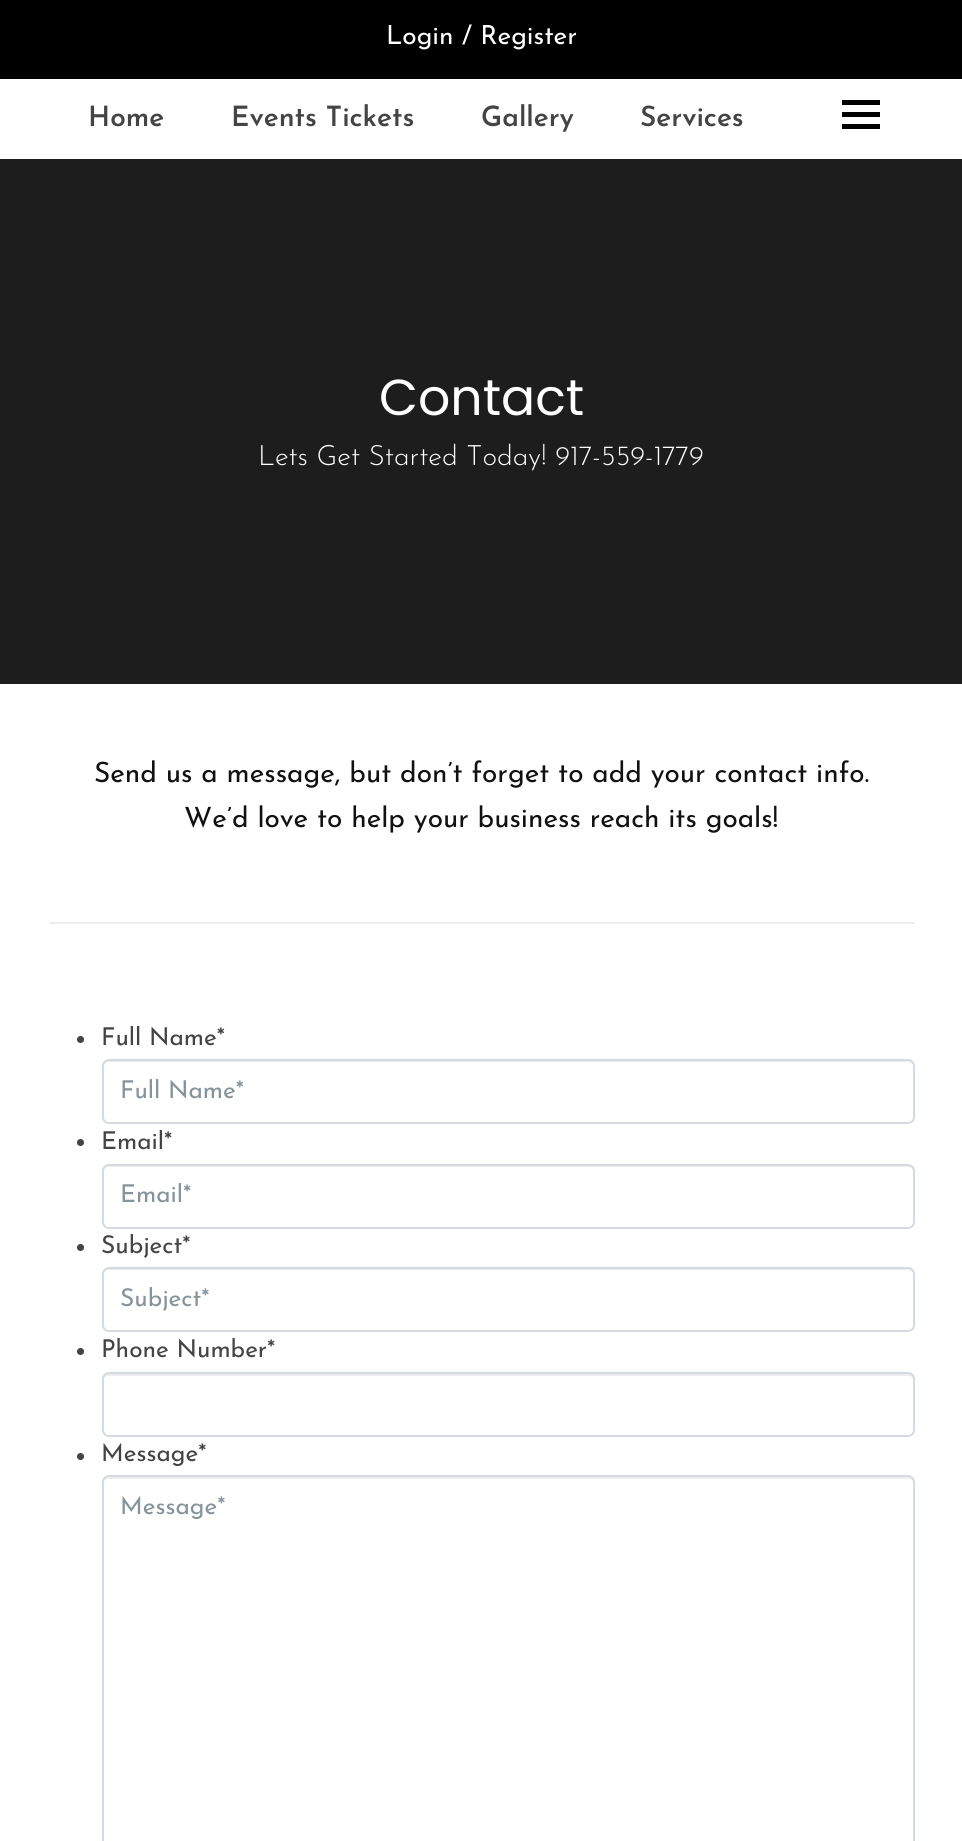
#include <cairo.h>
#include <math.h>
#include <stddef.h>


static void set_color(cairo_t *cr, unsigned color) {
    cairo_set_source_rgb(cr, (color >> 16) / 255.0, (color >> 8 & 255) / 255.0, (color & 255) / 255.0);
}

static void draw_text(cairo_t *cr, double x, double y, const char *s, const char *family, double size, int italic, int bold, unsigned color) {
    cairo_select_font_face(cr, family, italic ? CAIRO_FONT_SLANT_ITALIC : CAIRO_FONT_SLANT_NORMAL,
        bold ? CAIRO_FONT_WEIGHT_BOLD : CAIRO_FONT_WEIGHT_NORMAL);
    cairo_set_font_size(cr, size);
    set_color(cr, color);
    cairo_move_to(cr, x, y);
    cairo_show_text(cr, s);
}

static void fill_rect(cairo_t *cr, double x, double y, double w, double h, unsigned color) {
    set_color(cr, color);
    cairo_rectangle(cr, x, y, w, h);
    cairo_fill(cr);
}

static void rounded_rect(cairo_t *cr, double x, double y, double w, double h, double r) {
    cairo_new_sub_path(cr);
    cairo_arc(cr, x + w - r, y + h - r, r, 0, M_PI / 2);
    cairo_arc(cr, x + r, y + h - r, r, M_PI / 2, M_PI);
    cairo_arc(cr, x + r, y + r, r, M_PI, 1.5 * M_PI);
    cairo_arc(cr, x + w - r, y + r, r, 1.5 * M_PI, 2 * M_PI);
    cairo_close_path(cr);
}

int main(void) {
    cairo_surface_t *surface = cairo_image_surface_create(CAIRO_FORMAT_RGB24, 962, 1841);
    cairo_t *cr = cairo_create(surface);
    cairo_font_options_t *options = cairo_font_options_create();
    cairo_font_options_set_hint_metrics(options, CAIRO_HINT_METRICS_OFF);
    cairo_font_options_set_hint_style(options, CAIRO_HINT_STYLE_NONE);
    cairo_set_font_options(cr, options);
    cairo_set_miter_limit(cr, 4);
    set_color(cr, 0xFFFFFF);
    cairo_paint(cr);
    fill_rect(cr, 0, 0, 962, 79, 0x000000);
    draw_text(cr, 386, 44, "Login / Register", "Josefin Sans", 26.25, 0, 0, 0xFFFFFF);
    draw_text(cr, 88, 126, "Home", "Josefin Sans SemiBold", 28, 0, 0, 0x444444);
    draw_text(cr, 231, 126, "Events Tickets", "Josefin Sans SemiBold", 28, 0, 0, 0x444444);
    draw_text(cr, 481, 126, "Gallery", "Josefin Sans SemiBold", 28, 0, 0, 0x444444);
    draw_text(cr, 640, 126, "Services", "Josefin Sans SemiBold", 28, 0, 0, 0x444444);
    fill_rect(cr, 842, 112, 38, 5, 0x000000);
    fill_rect(cr, 842, 100, 38, 5, 0x000000);
    fill_rect(cr, 842, 124, 38, 5, 0x000000);
    fill_rect(cr, 0, 159, 962, 525, 0x1D1D1D);
    draw_text(cr, 379, 415, "Contact", "Poppins", 50.5, 0, 0, 0xFFFFFF);
    draw_text(cr, 258, 465, "Lets Get Started Today! 917-559-1779", "Josefin Sans Light", 28, 0, 0, 0xFFFFFF);
    draw_text(cr, 94, 782, "Send us a message, but don’t forget to add your contact info.", "Josefin Sans", 28, 0, 0, 0x111111);
    draw_text(cr, 184, 827, "We’d love to help your business reach its goals!", "Josefin Sans", 28, 0, 0, 0x111111);
    fill_rect(cr, 49, 922, 866, 2, 0xEEEEEE);
    set_color(cr, 0x444444);
    cairo_new_path(cr);
    cairo_arc(cr, 80.5, 1039.5, 3.5, 0, 2 * M_PI);
    cairo_fill(cr);
    draw_text(cr, 101, 1045, "Full Name*", "Josefin Sans", 24.5, 0, 0, 0x444444);
    set_color(cr, 0xEDEDED);
    cairo_new_path(cr);
    cairo_move_to(cr, 108, 1062);
    cairo_line_to(cr, 908, 1062);
    cairo_curve_to(cr, 911, 1062, 914, 1065, 914, 1068);
    cairo_line_to(cr, 914, 1066);
    cairo_curve_to(cr, 914, 1063, 912, 1061, 909, 1061);
    cairo_line_to(cr, 108, 1061);
    cairo_curve_to(cr, 105, 1061, 103, 1063, 103, 1066);
    cairo_line_to(cr, 103, 1068);
    cairo_curve_to(cr, 103, 1065, 106, 1062, 108, 1062);
    cairo_close_path(cr);
    cairo_fill(cr);
    rounded_rect(cr, 103, 1060, 811, 63, 6);
    set_color(cr, 0xD4DBE0);
    cairo_stroke(cr);
    draw_text(cr, 120, 1098, "Full Name*", "Josefin Sans", 24.5, 0, 0, 0x87939B);
    set_color(cr, 0x444444);
    cairo_new_path(cr);
    cairo_arc(cr, 80.5, 1142.5, 3.5, 0, 2 * M_PI);
    cairo_fill(cr);
    draw_text(cr, 101, 1149, "Email*", "Josefin Sans", 24.5, 0, 0, 0x444444);
    set_color(cr, 0xEDEDED);
    cairo_new_path(cr);
    cairo_move_to(cr, 108, 1167);
    cairo_line_to(cr, 908, 1167);
    cairo_curve_to(cr, 911, 1167, 914, 1170, 914, 1172);
    cairo_line_to(cr, 914, 1171);
    cairo_curve_to(cr, 914, 1168, 912, 1166, 909, 1166);
    cairo_line_to(cr, 108, 1166);
    cairo_curve_to(cr, 105, 1166, 103, 1168, 103, 1171);
    cairo_line_to(cr, 103, 1172);
    cairo_curve_to(cr, 103, 1170, 106, 1167, 108, 1167);
    cairo_close_path(cr);
    cairo_fill(cr);
    rounded_rect(cr, 103, 1165, 811, 63, 6);
    set_color(cr, 0xD4DBE0);
    cairo_stroke(cr);
    draw_text(cr, 120, 1202, "Email*", "Josefin Sans", 24.5, 0, 0, 0x87939B);
    set_color(cr, 0x444444);
    cairo_new_path(cr);
    cairo_arc(cr, 80.5, 1247.5, 3.5, 0, 2 * M_PI);
    cairo_fill(cr);
    draw_text(cr, 101, 1253, "Subject*", "Josefin Sans", 24.5, 0, 0, 0x444444);
    set_color(cr, 0xEDEDED);
    cairo_new_path(cr);
    cairo_move_to(cr, 108, 1270);
    cairo_line_to(cr, 908, 1270);
    cairo_curve_to(cr, 911, 1270, 914, 1273, 914, 1276);
    cairo_line_to(cr, 914, 1274);
    cairo_curve_to(cr, 914, 1271, 912, 1269, 909, 1269);
    cairo_line_to(cr, 108, 1269);
    cairo_curve_to(cr, 105, 1269, 103, 1271, 103, 1274);
    cairo_line_to(cr, 103, 1276);
    cairo_curve_to(cr, 103, 1273, 106, 1270, 108, 1270);
    cairo_close_path(cr);
    cairo_fill(cr);
    rounded_rect(cr, 103, 1268, 811, 63, 6);
    set_color(cr, 0xD4DBE0);
    cairo_stroke(cr);
    draw_text(cr, 120, 1306, "Subject*", "Josefin Sans", 24.5, 0, 0, 0x87939B);
    set_color(cr, 0x444444);
    cairo_new_path(cr);
    cairo_arc(cr, 80.5, 1351.5, 3.5, 0, 2 * M_PI);
    cairo_fill(cr);
    draw_text(cr, 101, 1357, "Phone Number*", "Josefin Sans", 24.5, 0, 0, 0x444444);
    set_color(cr, 0xEDEDED);
    cairo_new_path(cr);
    cairo_move_to(cr, 108, 1376);
    cairo_line_to(cr, 908, 1376);
    cairo_curve_to(cr, 911, 1376, 914, 1378, 914, 1381);
    cairo_line_to(cr, 914, 1379);
    cairo_curve_to(cr, 914, 1376, 912, 1374, 909, 1374);
    cairo_line_to(cr, 108, 1374);
    cairo_curve_to(cr, 105, 1374, 103, 1376, 103, 1379);
    cairo_line_to(cr, 103, 1381);
    cairo_curve_to(cr, 103, 1378, 106, 1376, 108, 1376);
    cairo_close_path(cr);
    cairo_fill(cr);
    rounded_rect(cr, 103, 1373, 811, 63, 6);
    set_color(cr, 0xD4DBE0);
    cairo_stroke(cr);
    set_color(cr, 0x444444);
    cairo_arc(cr, 80.5, 1456.5, 3.5, 0, 2 * M_PI);
    cairo_fill(cr);
    draw_text(cr, 101, 1461, "Message*", "Josefin Sans", 24.5, 0, 0, 0x444444);
    set_color(cr, 0xEDEDED);
    cairo_new_path(cr);
    cairo_move_to(cr, 108, 1479);
    cairo_line_to(cr, 908, 1479);
    cairo_curve_to(cr, 911, 1479, 914, 1481, 914, 1484);
    cairo_line_to(cr, 914, 1482);
    cairo_curve_to(cr, 914, 1479, 912, 1477, 909, 1477);
    cairo_line_to(cr, 108, 1477);
    cairo_curve_to(cr, 105, 1477, 103, 1479, 103, 1482);
    cairo_line_to(cr, 103, 1484);
    cairo_curve_to(cr, 103, 1481, 106, 1479, 108, 1479);
    cairo_close_path(cr);
    cairo_fill(cr);
    rounded_rect(cr, 103, 1476, 811, 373, 6);
    set_color(cr, 0xD4DBE0);
    cairo_stroke(cr);
    draw_text(cr, 120, 1514, "Message*", "Josefin Sans", 24.5, 0, 0, 0x87939B);
    cairo_surface_write_to_png(surface, "output.png");
    cairo_font_options_destroy(options);
    cairo_destroy(cr);
    cairo_surface_destroy(surface);
    return 0;
}
